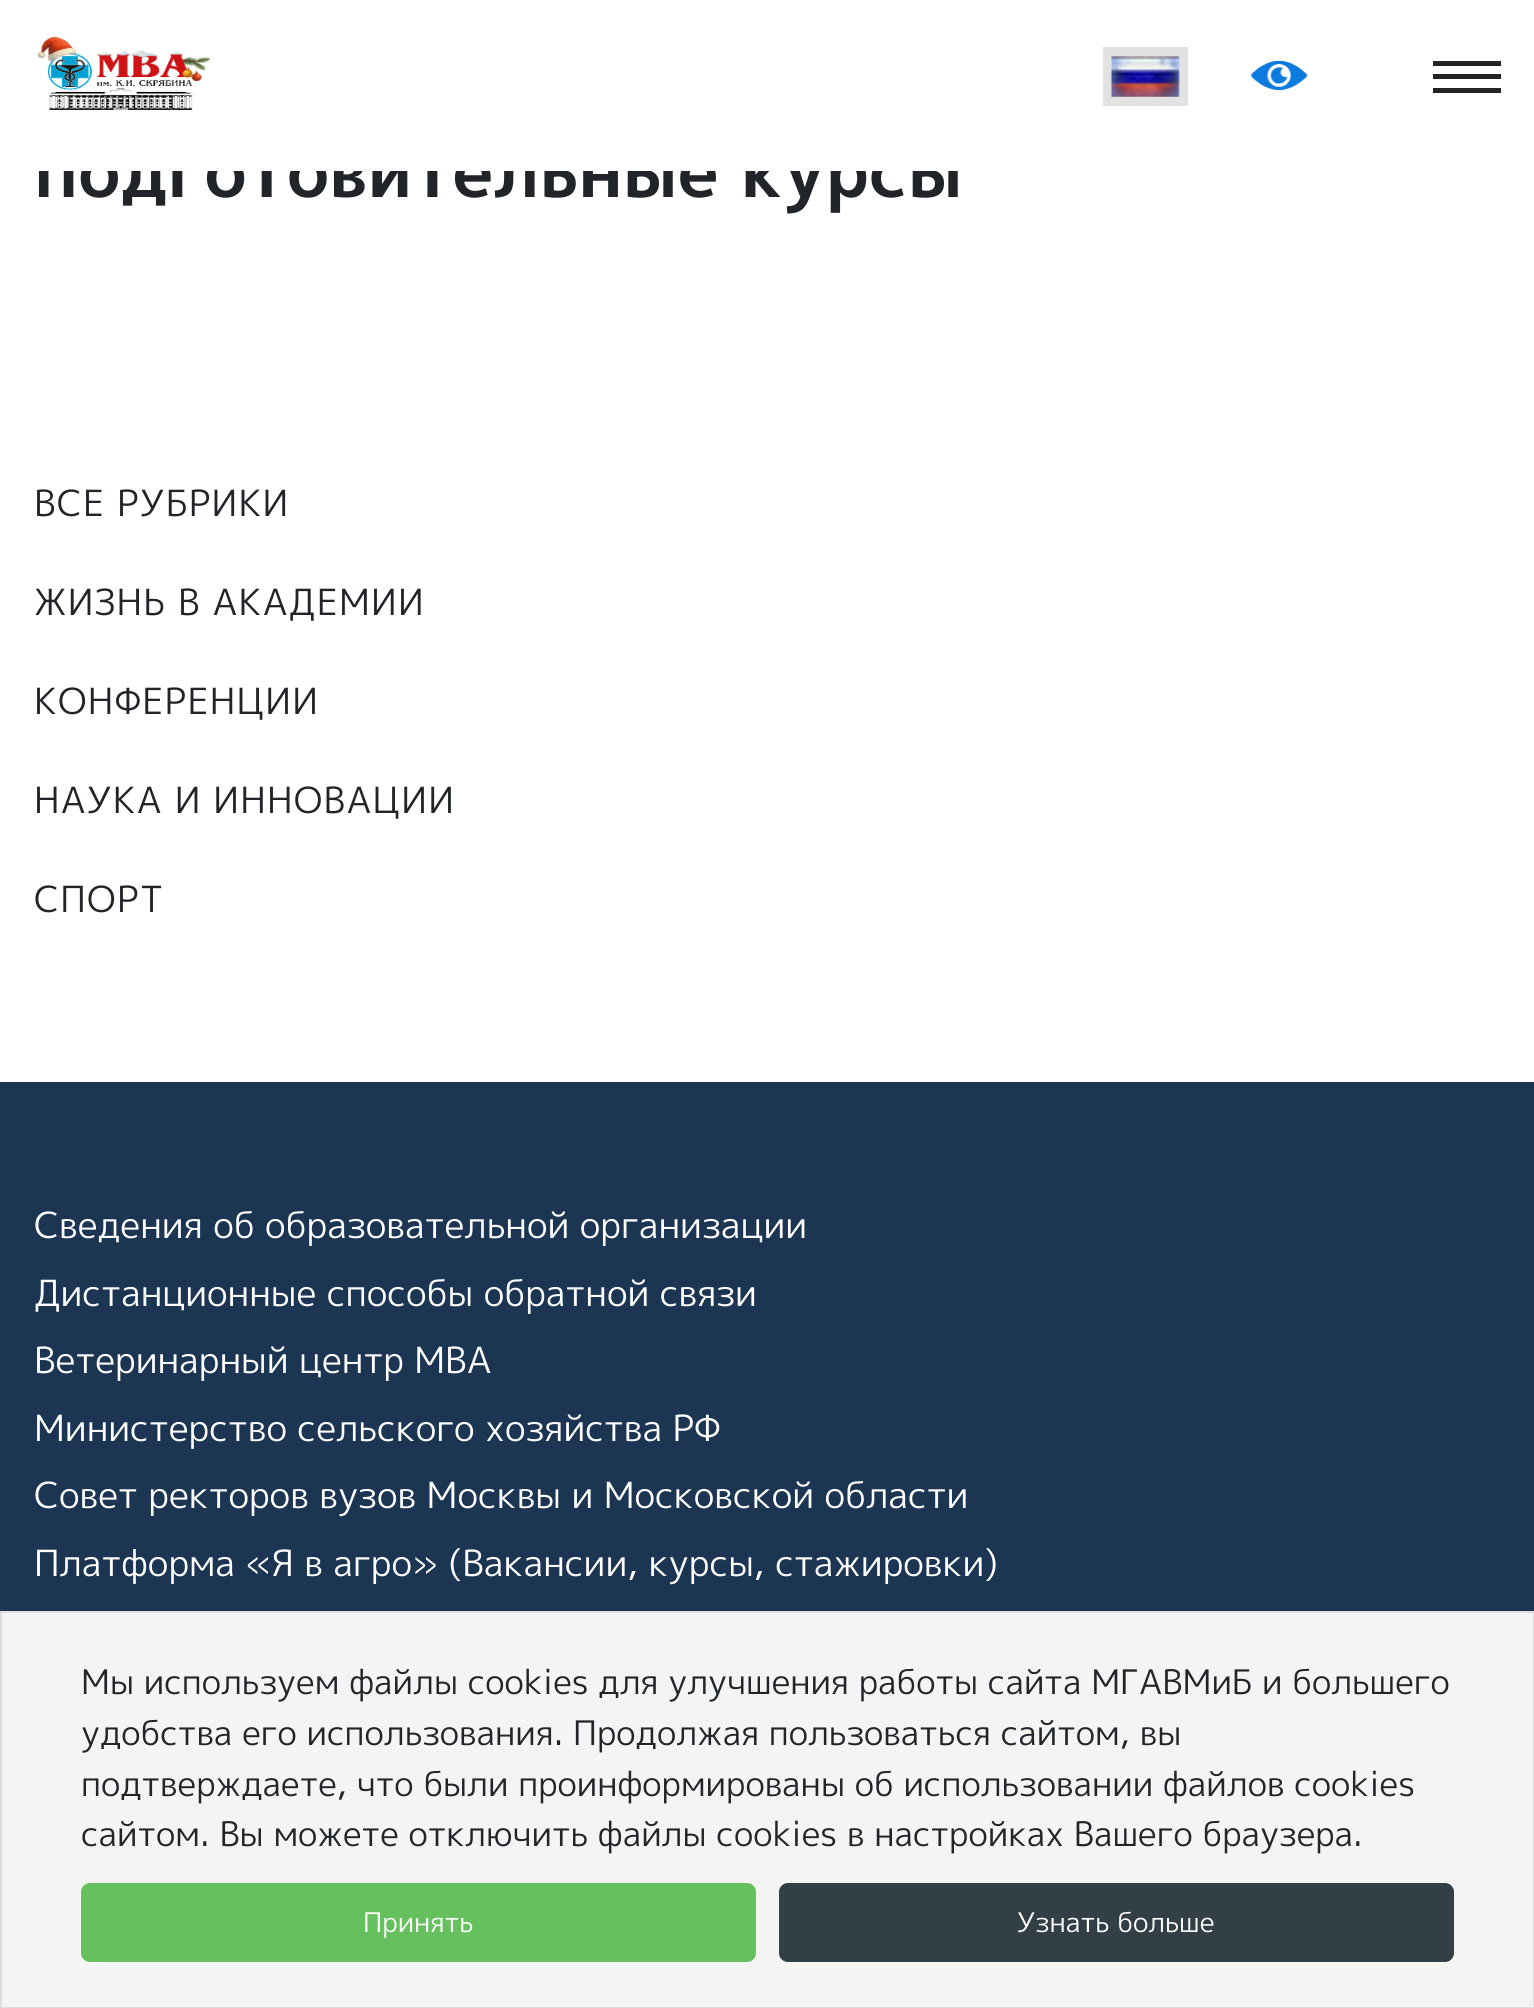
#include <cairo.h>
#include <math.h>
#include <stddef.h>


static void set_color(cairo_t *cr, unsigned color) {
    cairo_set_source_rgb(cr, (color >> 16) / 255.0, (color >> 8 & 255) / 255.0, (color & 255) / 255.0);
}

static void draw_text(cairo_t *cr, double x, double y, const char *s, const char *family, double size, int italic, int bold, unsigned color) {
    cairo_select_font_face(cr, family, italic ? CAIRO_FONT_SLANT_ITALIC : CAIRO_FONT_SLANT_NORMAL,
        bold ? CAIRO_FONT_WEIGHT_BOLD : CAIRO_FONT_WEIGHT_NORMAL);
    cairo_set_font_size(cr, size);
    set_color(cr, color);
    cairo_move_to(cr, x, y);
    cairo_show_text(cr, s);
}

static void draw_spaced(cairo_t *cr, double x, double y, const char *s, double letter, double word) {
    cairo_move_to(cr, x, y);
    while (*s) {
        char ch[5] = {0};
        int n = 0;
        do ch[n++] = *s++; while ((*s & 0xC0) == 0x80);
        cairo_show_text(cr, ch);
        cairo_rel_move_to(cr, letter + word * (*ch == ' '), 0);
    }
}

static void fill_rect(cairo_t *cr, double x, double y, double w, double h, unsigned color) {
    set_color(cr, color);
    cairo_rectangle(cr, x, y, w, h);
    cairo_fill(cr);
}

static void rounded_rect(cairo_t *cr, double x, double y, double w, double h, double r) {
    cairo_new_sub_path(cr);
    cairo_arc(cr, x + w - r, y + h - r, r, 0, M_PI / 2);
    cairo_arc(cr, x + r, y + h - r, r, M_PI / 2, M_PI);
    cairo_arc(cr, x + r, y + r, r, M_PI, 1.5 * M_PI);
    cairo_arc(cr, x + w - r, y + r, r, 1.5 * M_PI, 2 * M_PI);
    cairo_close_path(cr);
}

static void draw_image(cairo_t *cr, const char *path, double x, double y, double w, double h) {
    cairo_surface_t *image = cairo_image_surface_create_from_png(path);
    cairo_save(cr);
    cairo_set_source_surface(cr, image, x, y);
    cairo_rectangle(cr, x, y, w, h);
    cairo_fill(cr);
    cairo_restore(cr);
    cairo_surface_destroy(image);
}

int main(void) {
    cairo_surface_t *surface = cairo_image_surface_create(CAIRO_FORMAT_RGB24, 1534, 2008);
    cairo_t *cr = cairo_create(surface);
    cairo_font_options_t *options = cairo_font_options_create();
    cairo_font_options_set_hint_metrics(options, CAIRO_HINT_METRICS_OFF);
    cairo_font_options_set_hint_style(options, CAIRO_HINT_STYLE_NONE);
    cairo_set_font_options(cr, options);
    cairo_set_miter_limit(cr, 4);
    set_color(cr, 0xFFFFFF);
    cairo_paint(cr);
    draw_text(cr, 34, 197, "подготовительные курсы", "M PLUS 1p", 72, 0, 1, 0x212529);
    fill_rect(cr, 38, 158, 920, 13, 0xFFFFFF);
    draw_image(cr, "assets/img1.png", 37, 36, 174, 74);
    fill_rect(cr, 1103, 47, 85, 59, 0xE2E2E2);
    draw_image(cr, "assets/img2.png", 1111, 56, 69, 41);
    draw_image(cr, "assets/img3.png", 1250, 60, 58, 30);
    fill_rect(cr, 1433, 61, 68, 5, 0x232323);
    fill_rect(cr, 1433, 74, 68, 5, 0x232323);
    fill_rect(cr, 1433, 88, 68, 5, 0x232323);
    cairo_select_font_face(cr, "M PLUS 1p", CAIRO_FONT_SLANT_NORMAL, CAIRO_FONT_WEIGHT_NORMAL);
    cairo_set_font_size(cr, 36);
    set_color(cr, 0x212529);
    draw_spaced(cr, 34, 516, "ВСЕ РУБРИКИ", 1.25, 0);
    draw_spaced(cr, 34, 615, "ЖИЗНЬ В АКАДЕМИИ", 1.25, 0);
    draw_spaced(cr, 34, 714, "КОНФЕРЕНЦИИ", 1.25, 0);
    draw_spaced(cr, 34, 813, "НАУКА И ИННОВАЦИИ", 1.25, 0);
    draw_spaced(cr, 34, 912, "СПОРТ", 1.25, 0);
    fill_rect(cr, 0, 1082, 1534, 529, 0x1C3553);
    draw_text(cr, 34, 1238, "Сведения об образовательной организации", "M PLUS 1p", 36, 0, 0, 0xFFFFFF);
    draw_text(cr, 34, 1306, "Дистанционные способы обратной связи", "M PLUS 1p", 36, 0, 0, 0xFFFFFF);
    draw_text(cr, 34, 1373, "Ветеринарный центр МВА", "M PLUS 1p", 36, 0, 0, 0xFFFFFF);
    draw_text(cr, 34, 1441, "Министерство сельского хозяйства РФ", "M PLUS 1p", 36, 0, 0, 0xFFFFFF);
    draw_text(cr, 34, 1508, "Совет ректоров вузов Москвы и Московской области", "M PLUS 1p", 36, 0, 0, 0xFFFFFF);
    draw_text(cr, 34, 1576, "Платформа «Я в агро» (Вакансии, курсы, стажировки)", "M PLUS 1p", 36, 0, 0, 0xFFFFFF);
    set_color(cr, 0xF4F4F4);
    cairo_rectangle(cr, 1, 1612, 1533, 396);
    cairo_fill_preserve(cr);
    set_color(cr, 0xDDDDDD);
    cairo_stroke(cr);
    draw_text(cr, 81, 1694, "Мы используем файлы cookies для улучшения работы сайта МГАВМиБ и большего", "M PLUS 1p", 33.75, 0, 0, 0x212529);
    draw_text(cr, 81, 1745, "удобства его использования. Продолжая пользоваться сайтом, вы", "M PLUS 1p", 33.75, 0, 0, 0x212529);
    draw_text(cr, 81, 1796, "подтверждаете, что были проинформированы об использовании файлов cookies", "M PLUS 1p", 33.75, 0, 0, 0x212529);
    draw_text(cr, 81, 1846, "сайтом. Вы можете отключить файлы cookies в настройках Вашего браузера.", "M PLUS 1p", 33.75, 0, 0, 0x212529);
    set_color(cr, 0x66C05D);
    rounded_rect(cr, 82, 1884, 673, 77, 8);
    cairo_fill_preserve(cr);
    cairo_stroke(cr);
    draw_text(cr, 363, 1932, "Принять", "M PLUS 1p", 27, 0, 0, 0xFFFFFF);
    set_color(cr, 0x333F46);
    rounded_rect(cr, 780, 1884, 673, 77, 8);
    cairo_fill_preserve(cr);
    cairo_stroke(cr);
    draw_text(cr, 1017, 1932, "Узнать больше", "M PLUS 1p", 27, 0, 0, 0xFFFFFF);
    cairo_surface_write_to_png(surface, "output.png");
    cairo_font_options_destroy(options);
    cairo_destroy(cr);
    cairo_surface_destroy(surface);
    return 0;
}
